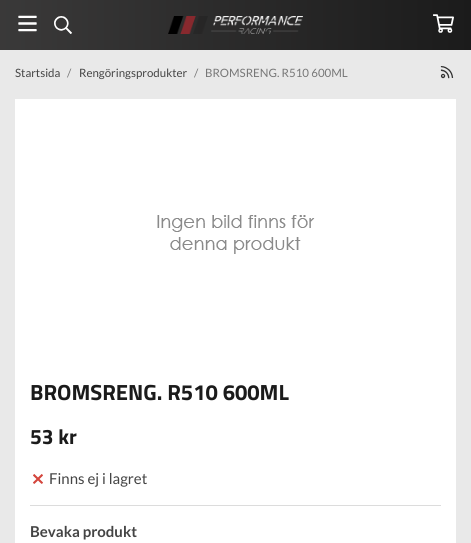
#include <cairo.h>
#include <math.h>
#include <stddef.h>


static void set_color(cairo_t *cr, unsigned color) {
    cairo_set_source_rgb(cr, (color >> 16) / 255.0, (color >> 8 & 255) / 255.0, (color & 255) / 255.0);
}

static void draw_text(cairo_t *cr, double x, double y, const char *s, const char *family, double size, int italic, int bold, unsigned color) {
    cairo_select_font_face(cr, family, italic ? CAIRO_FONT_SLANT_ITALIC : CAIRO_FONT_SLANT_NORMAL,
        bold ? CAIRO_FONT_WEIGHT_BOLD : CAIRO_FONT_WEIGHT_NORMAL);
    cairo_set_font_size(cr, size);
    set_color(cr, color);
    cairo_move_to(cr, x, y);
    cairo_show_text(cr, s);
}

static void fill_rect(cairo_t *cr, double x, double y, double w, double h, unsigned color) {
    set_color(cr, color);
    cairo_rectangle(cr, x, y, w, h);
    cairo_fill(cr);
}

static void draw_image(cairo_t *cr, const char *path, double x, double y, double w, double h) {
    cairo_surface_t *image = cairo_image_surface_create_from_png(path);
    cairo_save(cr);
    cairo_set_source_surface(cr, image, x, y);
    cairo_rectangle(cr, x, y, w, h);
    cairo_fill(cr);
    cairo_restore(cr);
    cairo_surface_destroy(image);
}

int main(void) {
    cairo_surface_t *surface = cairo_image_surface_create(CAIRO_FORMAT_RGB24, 471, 543);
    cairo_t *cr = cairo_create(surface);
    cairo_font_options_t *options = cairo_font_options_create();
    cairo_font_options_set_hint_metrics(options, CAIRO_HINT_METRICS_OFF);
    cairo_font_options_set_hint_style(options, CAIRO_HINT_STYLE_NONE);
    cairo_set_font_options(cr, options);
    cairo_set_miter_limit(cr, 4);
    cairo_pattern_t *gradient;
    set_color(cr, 0xE9E9E9);
    cairo_paint(cr);
    gradient = cairo_pattern_create_linear(0, 25, 471, 25);
    cairo_pattern_add_color_stop_rgba(gradient, 0, 0.227, 0.224, 0.224, 1);
    cairo_pattern_add_color_stop_rgba(gradient, 1, 0.106, 0.106, 0.106, 1);
    cairo_set_source(cr, gradient);
    cairo_pattern_destroy(gradient);
    cairo_rectangle(cr, 0, 0, 471, 50);
    cairo_fill(cr);
    draw_image(cr, "assets/img1.png", 18, 15, 19, 17);
    draw_image(cr, "assets/img2.png", 54, 16, 18, 18);
    draw_image(cr, "assets/img3.png", 168, 16, 135, 18);
    draw_image(cr, "assets/img4.png", 433, 14, 21, 19);
    draw_text(cr, 15, 77, "Startsida", "Lato", 11.5, 0, 0, 0x444444);
    draw_text(cr, 67, 77, "/", "Lato", 11.5, 0, 0, 0x777777);
    draw_text(cr, 79, 77, "Rengöringsprodukter", "Lato", 11.5, 0, 0, 0x444444);
    draw_text(cr, 194, 77, "/", "Lato", 11.5, 0, 0, 0x777777);
    draw_text(cr, 205, 77, "BROMSRENG. R510 600ML", "Lato", 11.5, 0, 0, 0x777777);
    draw_image(cr, "assets/img5.png", 440, 66, 14, 13);
    fill_rect(cr, 15, 99, 441, 444, 0xFFFFFF);
    draw_image(cr, "assets/img6.png", 157, 215, 158, 39);
    draw_text(cr, 30, 400, "BROMSRENG. R510 600ML", "Titillium Web", 22, 0, 1, 0x1B1B1B);
    draw_text(cr, 30, 444, "53 kr", "Titillium Web", 21, 0, 1, 0x1B1B1B);
    draw_image(cr, "assets/img7.png", 33, 474, 10, 10);
    draw_text(cr, 49, 484, "Finns ej i lagret", "Lato", 15, 0, 0, 0x444444);
    fill_rect(cr, 30, 505, 411, 1, 0xDCDCDC);
    draw_text(cr, 30, 537, "Bevaka produkt", "Lato", 15, 0, 1, 0x444444);
    cairo_surface_write_to_png(surface, "output.png");
    cairo_font_options_destroy(options);
    cairo_destroy(cr);
    cairo_surface_destroy(surface);
    return 0;
}
